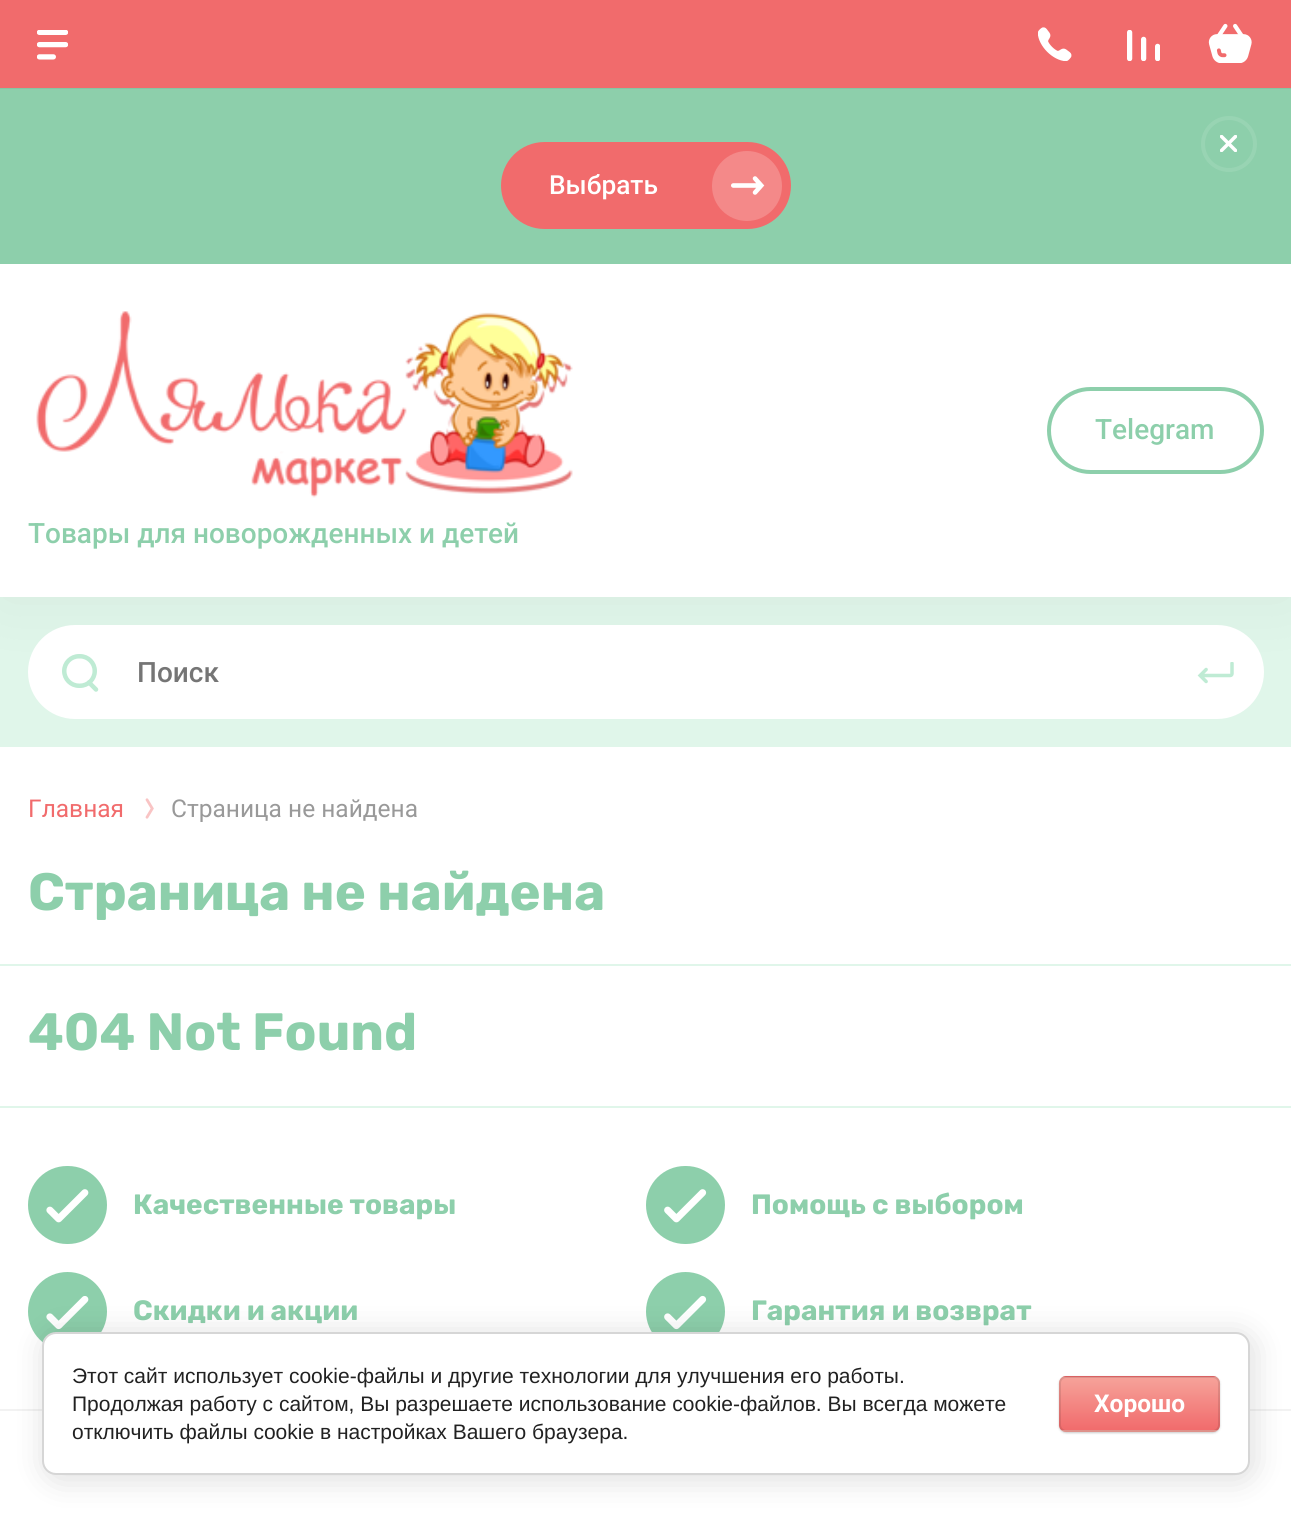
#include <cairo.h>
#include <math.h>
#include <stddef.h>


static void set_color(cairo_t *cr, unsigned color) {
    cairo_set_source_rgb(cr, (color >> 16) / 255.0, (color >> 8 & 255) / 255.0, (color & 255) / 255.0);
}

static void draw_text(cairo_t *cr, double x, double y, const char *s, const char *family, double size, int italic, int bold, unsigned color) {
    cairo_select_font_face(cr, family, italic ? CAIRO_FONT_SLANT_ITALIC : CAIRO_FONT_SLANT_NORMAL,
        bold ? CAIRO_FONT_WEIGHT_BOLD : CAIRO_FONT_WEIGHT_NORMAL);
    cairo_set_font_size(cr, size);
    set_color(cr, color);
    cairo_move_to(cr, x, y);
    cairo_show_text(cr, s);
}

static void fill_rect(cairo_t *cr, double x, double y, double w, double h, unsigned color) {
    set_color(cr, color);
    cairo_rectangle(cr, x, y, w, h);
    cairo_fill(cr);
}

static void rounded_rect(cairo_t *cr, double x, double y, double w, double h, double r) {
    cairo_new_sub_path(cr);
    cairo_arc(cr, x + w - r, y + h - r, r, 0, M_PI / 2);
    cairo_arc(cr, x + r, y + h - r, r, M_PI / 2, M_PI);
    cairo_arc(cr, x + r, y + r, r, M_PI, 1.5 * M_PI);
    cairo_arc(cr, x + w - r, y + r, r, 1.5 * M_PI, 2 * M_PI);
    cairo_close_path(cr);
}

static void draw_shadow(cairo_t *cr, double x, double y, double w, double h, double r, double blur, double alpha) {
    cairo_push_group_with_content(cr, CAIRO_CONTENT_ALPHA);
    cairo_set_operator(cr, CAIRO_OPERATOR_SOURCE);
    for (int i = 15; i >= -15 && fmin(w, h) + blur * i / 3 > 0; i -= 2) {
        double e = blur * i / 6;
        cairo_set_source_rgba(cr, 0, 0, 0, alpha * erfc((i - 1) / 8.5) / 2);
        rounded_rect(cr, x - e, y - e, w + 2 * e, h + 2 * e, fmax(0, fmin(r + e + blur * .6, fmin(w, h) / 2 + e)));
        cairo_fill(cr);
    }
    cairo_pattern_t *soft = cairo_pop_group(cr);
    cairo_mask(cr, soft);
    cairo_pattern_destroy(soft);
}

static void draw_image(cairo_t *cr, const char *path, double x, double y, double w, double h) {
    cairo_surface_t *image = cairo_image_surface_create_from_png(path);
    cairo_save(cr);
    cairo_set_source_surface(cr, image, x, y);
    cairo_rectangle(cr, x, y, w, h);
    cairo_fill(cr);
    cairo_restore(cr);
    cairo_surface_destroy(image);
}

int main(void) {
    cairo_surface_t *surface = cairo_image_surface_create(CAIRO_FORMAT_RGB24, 1291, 1516);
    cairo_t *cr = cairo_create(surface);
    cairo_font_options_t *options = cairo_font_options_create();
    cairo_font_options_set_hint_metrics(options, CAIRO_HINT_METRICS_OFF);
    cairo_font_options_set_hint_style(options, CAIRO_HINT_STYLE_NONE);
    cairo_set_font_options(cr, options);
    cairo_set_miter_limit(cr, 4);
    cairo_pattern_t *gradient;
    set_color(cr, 0xE0F6EA);
    cairo_paint(cr);
    set_color(cr, 0x86C5A2);
    cairo_new_path(cr);
    cairo_move_to(cr, 0, 88);
    cairo_line_to(cr, 0, 89);
    cairo_line_to(cr, 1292, 89);
    cairo_line_to(cr, 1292, 2);
    cairo_line_to(cr, 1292, 88);
    cairo_close_path(cr);
    cairo_fill(cr);
    fill_rect(cr, 0, 0, 1291, 88, 0xF16B6C);
    draw_image(cr, "assets/img1.png", 37, 30, 31, 30);
    draw_image(cr, "assets/img2.png", 1038, 27, 34, 34);
    draw_image(cr, "assets/img3.png", 1127, 30, 33, 31);
    draw_image(cr, "assets/img4.png", 1208, 23, 44, 40);
    set_color(cr, 0x000000);
    draw_shadow(cr, 0, 266, 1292, 333, 0, 35, 0.05);
    fill_rect(cr, 0, 89, 1291, 175, 0x8DCFAB);
    cairo_arc(cr, 1229, 144, 26, 0, 2 * M_PI);
    set_color(cr, 0x98D4B3);
    cairo_set_line_width(cr, 4);
    cairo_stroke(cr);
    draw_image(cr, "assets/img5.png", 1220, 135, 17, 17);
    set_color(cr, 0xF16B6C);
    rounded_rect(cr, 501, 142, 290, 87, 43.5);
    cairo_fill(cr);
    draw_text(cr, 549, 194, "Выбрать", "Roboto Medium", 26.25, 0, 0, 0xFFFFFF);
    set_color(cr, 0xF48989);
    cairo_new_path(cr);
    cairo_arc(cr, 747, 186, 35, 0, 2 * M_PI);
    cairo_fill(cr);
    draw_image(cr, "assets/img6.png", 731, 176, 34, 19);
    fill_rect(cr, 0, 264, 1291, 333, 0xFFFFFF);
    rounded_rect(cr, 1049, 389, 213, 83, 41.5);
    set_color(cr, 0x8DCFAB);
    cairo_stroke(cr);
    draw_text(cr, 1095, 439, "Telegram", "Roboto Medium", 28, 0, 0, 0x8DCFAB);
    draw_image(cr, "assets/img7.png", 36, 311, 537, 187);
    draw_text(cr, 28, 543, "Товары для новорожденных и детей", "Roboto Medium", 28, 0, 0, 0x8DCFAB);
    set_color(cr, 0xFFFFFF);
    rounded_rect(cr, 30, 627, 1232, 90, 45);
    cairo_fill_preserve(cr);
    cairo_stroke(cr);
    rounded_rect(cr, 64.25, 656.25, 30.5, 29.5, 14.75);
    set_color(cr, 0xBFEBD4);
    cairo_set_line_width(cr, 4.5);
    cairo_stroke(cr);
    cairo_new_path(cr);
    cairo_move_to(cr, 89, 682.5);
    cairo_line_to(cr, 96, 689.5);
    cairo_set_line_cap(cr, CAIRO_LINE_CAP_ROUND);
    cairo_stroke(cr);
    draw_text(cr, 137, 682, "Поиск", "Roboto Medium", 28, 0, 0, 0x757575);
    draw_image(cr, "assets/img8.png", 1197, 662, 37, 22);
    fill_rect(cr, 0, 747, 1291, 359, 0xFFFFFF);
    fill_rect(cr, 0, 964, 1291, 2, 0xE0F6EA);
    draw_text(cr, 28, 817, "Главная", "Roboto", 24.5, 0, 0, 0xF16B6C);
    draw_image(cr, "assets/img9.png", 145, 798, 9, 21);
    draw_text(cr, 171, 817, "Страница не найдена", "Roboto", 24.5, 0, 0, 0x999999);
    draw_text(cr, 28, 910, "Страница не найдена", "Rubik", 52.5, 0, 1, 0x8DCFAB);
    draw_text(cr, 28, 1050, "404 Not Found", "Rubik", 52.5, 0, 1, 0x8DCFAB);
    fill_rect(cr, 0, 1108, 1291, 301, 0xFFFFFF);
    set_color(cr, 0x8DCFAB);
    rounded_rect(cr, 28, 1166, 79, 78, 39);
    cairo_fill(cr);
    draw_image(cr, "assets/img10.png", 46, 1189, 43, 34);
    draw_text(cr, 133, 1214, "Качественные товары", "Rubik", 28, 0, 1, 0x8DCFAB);
    rounded_rect(cr, 646, 1166, 79, 78, 39);
    cairo_fill(cr);
    draw_image(cr, "assets/img11.png", 664, 1189, 43, 34);
    draw_text(cr, 751, 1214, "Помощь с выбором", "Rubik", 28, 0, 1, 0x8DCFAB);
    cairo_new_path(cr);
    cairo_arc(cr, 67.5, 1311.5, 39.5, 0, 2 * M_PI);
    cairo_fill(cr);
    draw_image(cr, "assets/img12.png", 46, 1296, 43, 34);
    draw_text(cr, 133, 1320, "Скидки и акции", "Rubik", 28, 0, 1, 0x8DCFAB);
    cairo_new_path(cr);
    cairo_arc(cr, 685.5, 1311.5, 39.5, 0, 2 * M_PI);
    cairo_fill(cr);
    draw_image(cr, "assets/img13.png", 664, 1295, 43, 35);
    draw_text(cr, 751, 1320, "Гарантия и возврат", "Rubik", 28, 0, 1, 0x8DCFAB);
    fill_rect(cr, 0, 1411, 1291, 105, 0xFFFFFF);
    fill_rect(cr, 0, 1409, 1291, 2, 0xF2F2F2);
    set_color(cr, 0x000000);
    draw_shadow(cr, 46, 1335, 1207, 144, 14, 16, 0.14);
    set_color(cr, 0xFFFFFF);
    rounded_rect(cr, 43, 1333, 1206, 141, 13);
    cairo_fill_preserve(cr);
    set_color(cr, 0xD6D6D6);
    cairo_set_line_width(cr, 2);
    cairo_set_line_cap(cr, CAIRO_LINE_CAP_BUTT);
    cairo_stroke(cr);
    draw_text(cr, 72, 1383, "Этот сайт использует cookie-файлы и другие технологии для улучшения его работы.", "Liberation Sans", 21, 0, 0, 0x212121);
    draw_text(cr, 72, 1411, "Продолжая работу с сайтом, Вы разрешаете использование cookie-файлов. Вы всегда можете", "Liberation Sans", 21, 0, 0, 0x212121);
    draw_text(cr, 72, 1439, "отключить файлы cookie в настройках Вашего браузера.", "Liberation Sans", 21, 0, 0, 0x212121);
    set_color(cr, 0x000000);
    draw_shadow(cr, 1059, 1377, 161, 56, 7, 1, 0.2);
    cairo_save(cr);
    rounded_rect(cr, 1059, 1376, 161, 56, 7);
    cairo_clip(cr);
    gradient = cairo_pattern_create_linear(1139, 1325, 1139, 1377);
    cairo_pattern_add_color_stop_rgba(gradient, 0, 0.965, 0.639, 0.604, 1);
    cairo_pattern_add_color_stop_rgba(gradient, 1, 0.945, 0.42, 0.424, 1);
    cairo_set_source(cr, gradient);
    cairo_pattern_destroy(gradient);
    cairo_rectangle(cr, 1059, 1376, 161, 1);
    cairo_fill(cr);
    gradient = cairo_pattern_create_linear(1139, 1377, 1139, 1430);
    cairo_pattern_add_color_stop_rgba(gradient, 0, 0.965, 0.639, 0.604, 1);
    cairo_pattern_add_color_stop_rgba(gradient, 1, 0.945, 0.42, 0.424, 1);
    cairo_set_source(cr, gradient);
    cairo_pattern_destroy(gradient);
    cairo_rectangle(cr, 1059, 1377, 161, 53);
    cairo_fill(cr);
    gradient = cairo_pattern_create_linear(1139, 1430, 1139, 1482);
    cairo_pattern_add_color_stop_rgba(gradient, 0, 0.965, 0.639, 0.604, 1);
    cairo_pattern_add_color_stop_rgba(gradient, 1, 0.945, 0.42, 0.424, 1);
    cairo_set_source(cr, gradient);
    cairo_pattern_destroy(gradient);
    cairo_rectangle(cr, 1059, 1430, 161, 2);
    cairo_fill(cr);
    cairo_restore(cr);
    rounded_rect(cr, 1060, 1377, 159, 54, 6);
    cairo_set_source_rgba(cr, 0, 0, 0, 0.1);
    cairo_stroke(cr);
    draw_text(cr, 1094, 1412, "Хорошо", "Roboto", 24.5, 0, 1, 0xFFFFFF);
    cairo_surface_write_to_png(surface, "output.png");
    cairo_font_options_destroy(options);
    cairo_destroy(cr);
    cairo_surface_destroy(surface);
    return 0;
}
